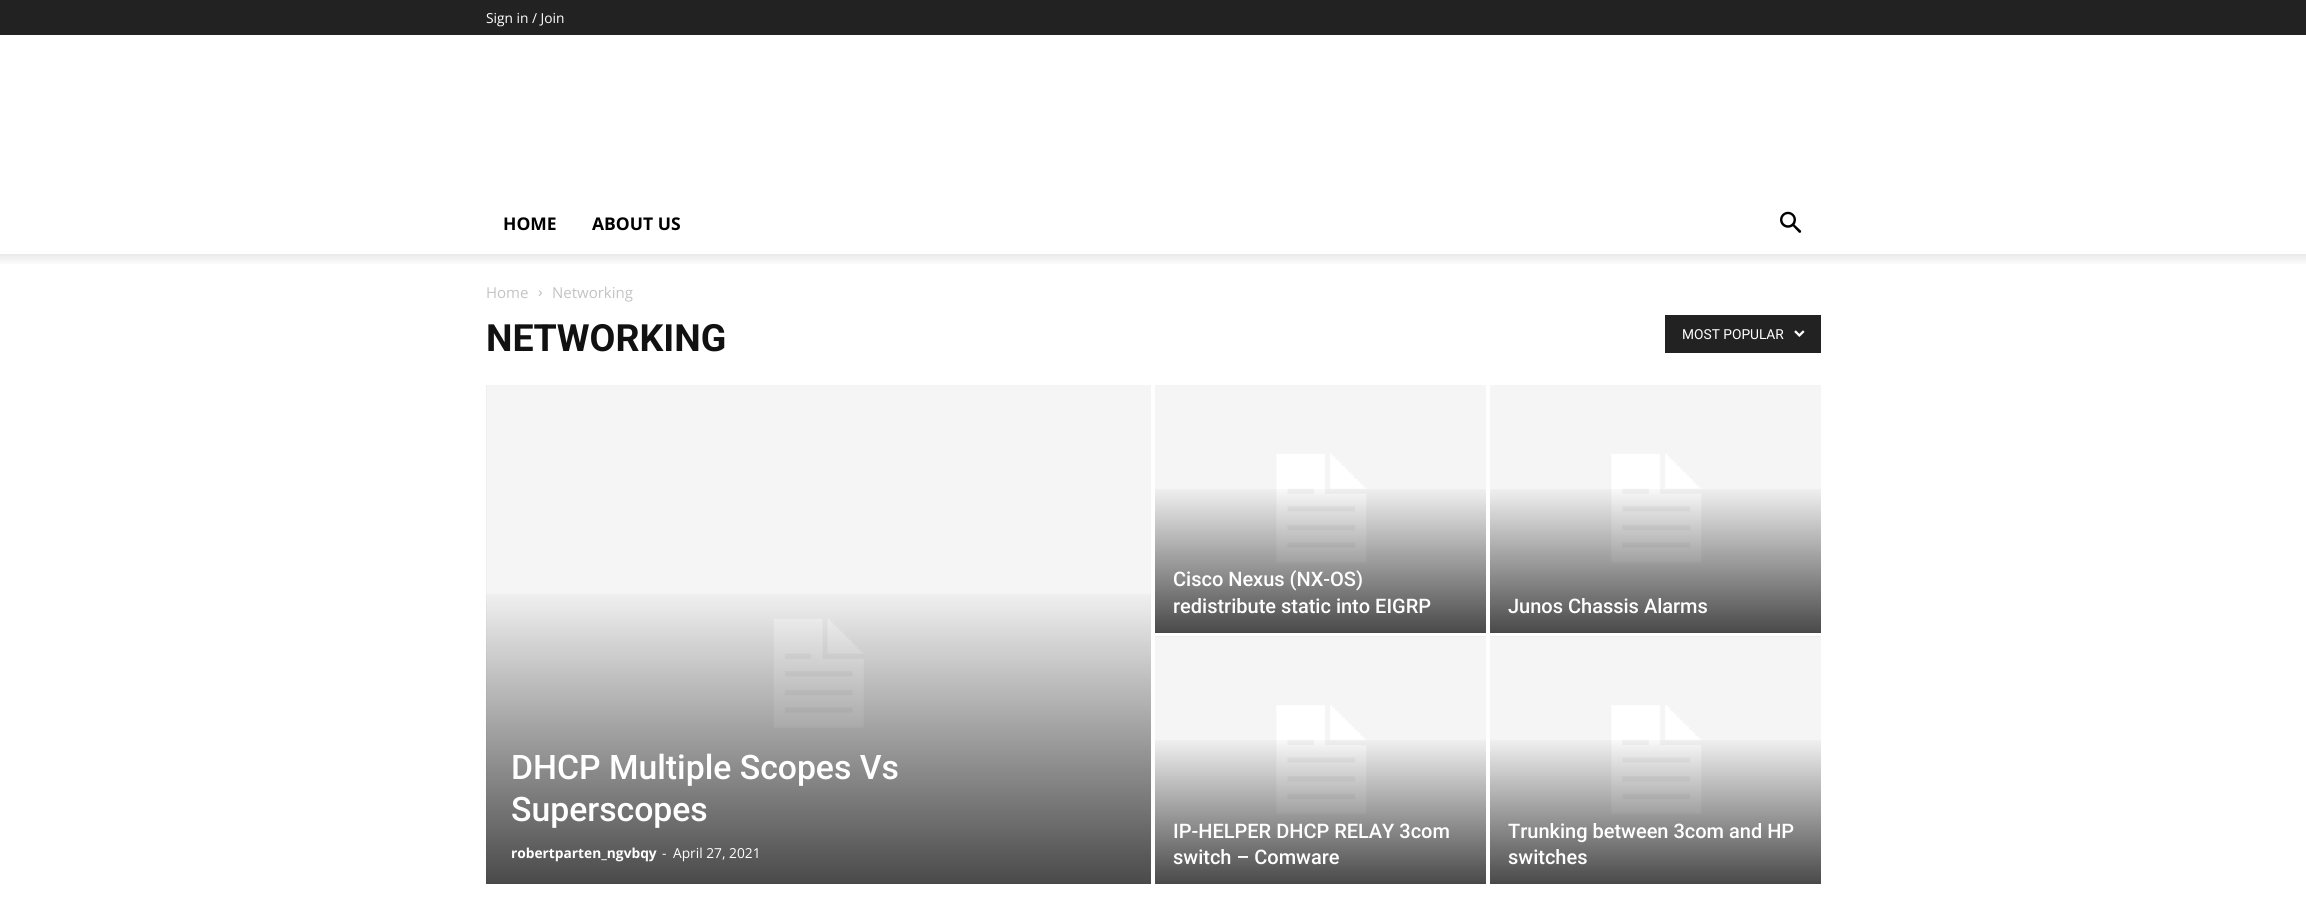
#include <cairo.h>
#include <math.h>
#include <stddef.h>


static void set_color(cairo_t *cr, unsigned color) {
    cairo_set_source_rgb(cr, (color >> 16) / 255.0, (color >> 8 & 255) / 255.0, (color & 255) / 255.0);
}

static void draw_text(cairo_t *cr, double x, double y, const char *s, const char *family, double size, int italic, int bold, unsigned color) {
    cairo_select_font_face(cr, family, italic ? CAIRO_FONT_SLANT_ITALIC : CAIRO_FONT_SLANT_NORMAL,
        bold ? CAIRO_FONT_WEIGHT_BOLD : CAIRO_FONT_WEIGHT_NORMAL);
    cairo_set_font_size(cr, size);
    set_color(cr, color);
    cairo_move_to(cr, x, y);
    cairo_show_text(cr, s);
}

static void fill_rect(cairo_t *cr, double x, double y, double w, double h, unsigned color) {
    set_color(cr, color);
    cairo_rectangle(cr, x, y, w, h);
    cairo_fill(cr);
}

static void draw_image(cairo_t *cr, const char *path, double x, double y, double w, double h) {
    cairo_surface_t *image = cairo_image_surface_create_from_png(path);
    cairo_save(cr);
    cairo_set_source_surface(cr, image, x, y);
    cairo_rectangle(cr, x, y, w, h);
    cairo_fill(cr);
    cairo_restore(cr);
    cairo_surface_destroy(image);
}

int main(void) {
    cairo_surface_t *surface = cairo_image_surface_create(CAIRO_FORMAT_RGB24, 2306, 903);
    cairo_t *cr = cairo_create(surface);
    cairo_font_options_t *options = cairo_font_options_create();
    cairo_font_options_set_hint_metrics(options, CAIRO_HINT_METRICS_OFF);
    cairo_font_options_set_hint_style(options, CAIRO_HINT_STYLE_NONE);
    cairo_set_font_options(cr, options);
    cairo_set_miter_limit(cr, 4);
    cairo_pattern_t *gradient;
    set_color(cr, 0xFFFFFF);
    cairo_paint(cr);
    fill_rect(cr, 0, 0, 2306, 35, 0x222222);
    draw_text(cr, 486, 23, "Sign in / Join", "Open Sans", 13.75, 0, 0, 0xFFFFFF);
    draw_text(cr, 503, 230, "HOME", "Open Sans", 17.5, 0, 1, 0x000000);
    draw_text(cr, 592, 230, "ABOUT US", "Open Sans", 17.5, 0, 1, 0x000000);
    draw_image(cr, "assets/img1.png", 1780, 211, 22, 22);
    draw_image(cr, "assets/img2.png", 0, 254, 2306, 10);
    draw_text(cr, 486, 298, "Home", "Open Sans", 15, 0, 0, 0xC3C3C3);
    draw_image(cr, "assets/img3.png", 538, 290, 4, 6);
    draw_text(cr, 552, 298, "Networking", "Open Sans", 15, 0, 0, 0xC3C3C3);
    draw_text(cr, 486, 351, "NETWORKING", "Roboto", 37.5, 0, 1, 0x111111);
    fill_rect(cr, 1665, 315, 156, 38, 0x222222);
    draw_text(cr, 1682, 339, "MOST POPULAR", "Roboto", 13.75, 0, 0, 0xFFFFFF);
    draw_image(cr, "assets/img4.png", 1794, 330, 11, 7);
    fill_rect(cr, 486, 385, 665, 499, 0xE5E5E5);
    draw_image(cr, "assets/img5.png", 486, 385, 665, 499);
    gradient = cairo_pattern_create_linear(819, 385, 819, 884);
    cairo_pattern_add_color_stop_rgba(gradient, 0.4, 0, 0, 0, 0);
    cairo_pattern_add_color_stop_rgba(gradient, 1, 0, 0, 0, 0.7);
    cairo_set_source(cr, gradient);
    cairo_pattern_destroy(gradient);
    cairo_rectangle(cr, 486, 594, 665, 290);
    cairo_fill(cr);
    draw_text(cr, 511, 779, "DHCP Multiple Scopes Vs", "Roboto Medium", 33.75, 0, 0, 0xFFFFFF);
    draw_text(cr, 511, 821, "Superscopes", "Roboto Medium", 33.75, 0, 0, 0xFFFFFF);
    draw_text(cr, 511, 858, "robertparten_ngvbqy", "Open Sans", 13.75, 0, 1, 0xFFFFFF);
    draw_text(cr, 662, 858, "-", "Open Sans", 13.75, 0, 0, 0xFFFFFF);
    draw_text(cr, 673, 858, "April 27, 2021", "Open Sans", 13.75, 0, 0, 0xFFFFFF);
    fill_rect(cr, 1155, 632, 331, 1, 0xE5E5E5);
    draw_image(cr, "assets/img6.png", 1155, 385, 331, 248);
    gradient = cairo_pattern_create_linear(1321, 385, 1321, 633);
    cairo_pattern_add_color_stop_rgba(gradient, 0.4, 0, 0, 0, 0);
    cairo_pattern_add_color_stop_rgba(gradient, 1, 0, 0, 0, 0.7);
    cairo_set_source(cr, gradient);
    cairo_pattern_destroy(gradient);
    cairo_rectangle(cr, 1155, 489, 331, 144);
    cairo_fill(cr);
    draw_text(cr, 1173, 586, "Cisco Nexus (NX-OS)", "Roboto Medium", 20, 0, 0, 0xFFFFFF);
    draw_text(cr, 1173, 613, "redistribute static into EIGRP", "Roboto Medium", 20, 0, 0, 0xFFFFFF);
    fill_rect(cr, 1490, 632, 331, 1, 0xE5E5E5);
    draw_image(cr, "assets/img6.png", 1490, 385, 331, 248);
    gradient = cairo_pattern_create_linear(1656, 385, 1656, 633);
    cairo_pattern_add_color_stop_rgba(gradient, 0.4, 0, 0, 0, 0);
    cairo_pattern_add_color_stop_rgba(gradient, 1, 0, 0, 0, 0.7);
    cairo_set_source(cr, gradient);
    cairo_pattern_destroy(gradient);
    cairo_rectangle(cr, 1490, 489, 331, 144);
    cairo_fill(cr);
    draw_text(cr, 1508, 613, "Junos Chassis Alarms", "Roboto Medium", 20, 0, 0, 0xFFFFFF);
    fill_rect(cr, 1155, 636, 331, 248, 0xE5E5E5);
    draw_image(cr, "assets/img7.png", 1155, 636, 331, 248);
    gradient = cairo_pattern_create_linear(1321, 636, 1321, 884);
    cairo_pattern_add_color_stop_rgba(gradient, 0.4, 0, 0, 0, 0);
    cairo_pattern_add_color_stop_rgba(gradient, 1, 0, 0, 0, 0.7);
    cairo_set_source(cr, gradient);
    cairo_pattern_destroy(gradient);
    cairo_rectangle(cr, 1155, 740, 331, 144);
    cairo_fill(cr);
    draw_text(cr, 1173, 838, "IP-HELPER DHCP RELAY 3com", "Roboto Medium", 20, 0, 0, 0xFFFFFF);
    draw_text(cr, 1173, 864, "switch – Comware", "Roboto Medium", 20, 0, 0, 0xFFFFFF);
    fill_rect(cr, 1490, 636, 331, 248, 0xE5E5E5);
    draw_image(cr, "assets/img7.png", 1490, 636, 331, 248);
    gradient = cairo_pattern_create_linear(1656, 636, 1656, 884);
    cairo_pattern_add_color_stop_rgba(gradient, 0.4, 0, 0, 0, 0);
    cairo_pattern_add_color_stop_rgba(gradient, 1, 0, 0, 0, 0.7);
    cairo_set_source(cr, gradient);
    cairo_pattern_destroy(gradient);
    cairo_rectangle(cr, 1490, 740, 331, 144);
    cairo_fill(cr);
    draw_text(cr, 1508, 838, "Trunking between 3com and HP", "Roboto Medium", 20, 0, 0, 0xFFFFFF);
    draw_text(cr, 1508, 864, "switches", "Roboto Medium", 20, 0, 0, 0xFFFFFF);
    cairo_surface_write_to_png(surface, "output.png");
    cairo_font_options_destroy(options);
    cairo_destroy(cr);
    cairo_surface_destroy(surface);
    return 0;
}
